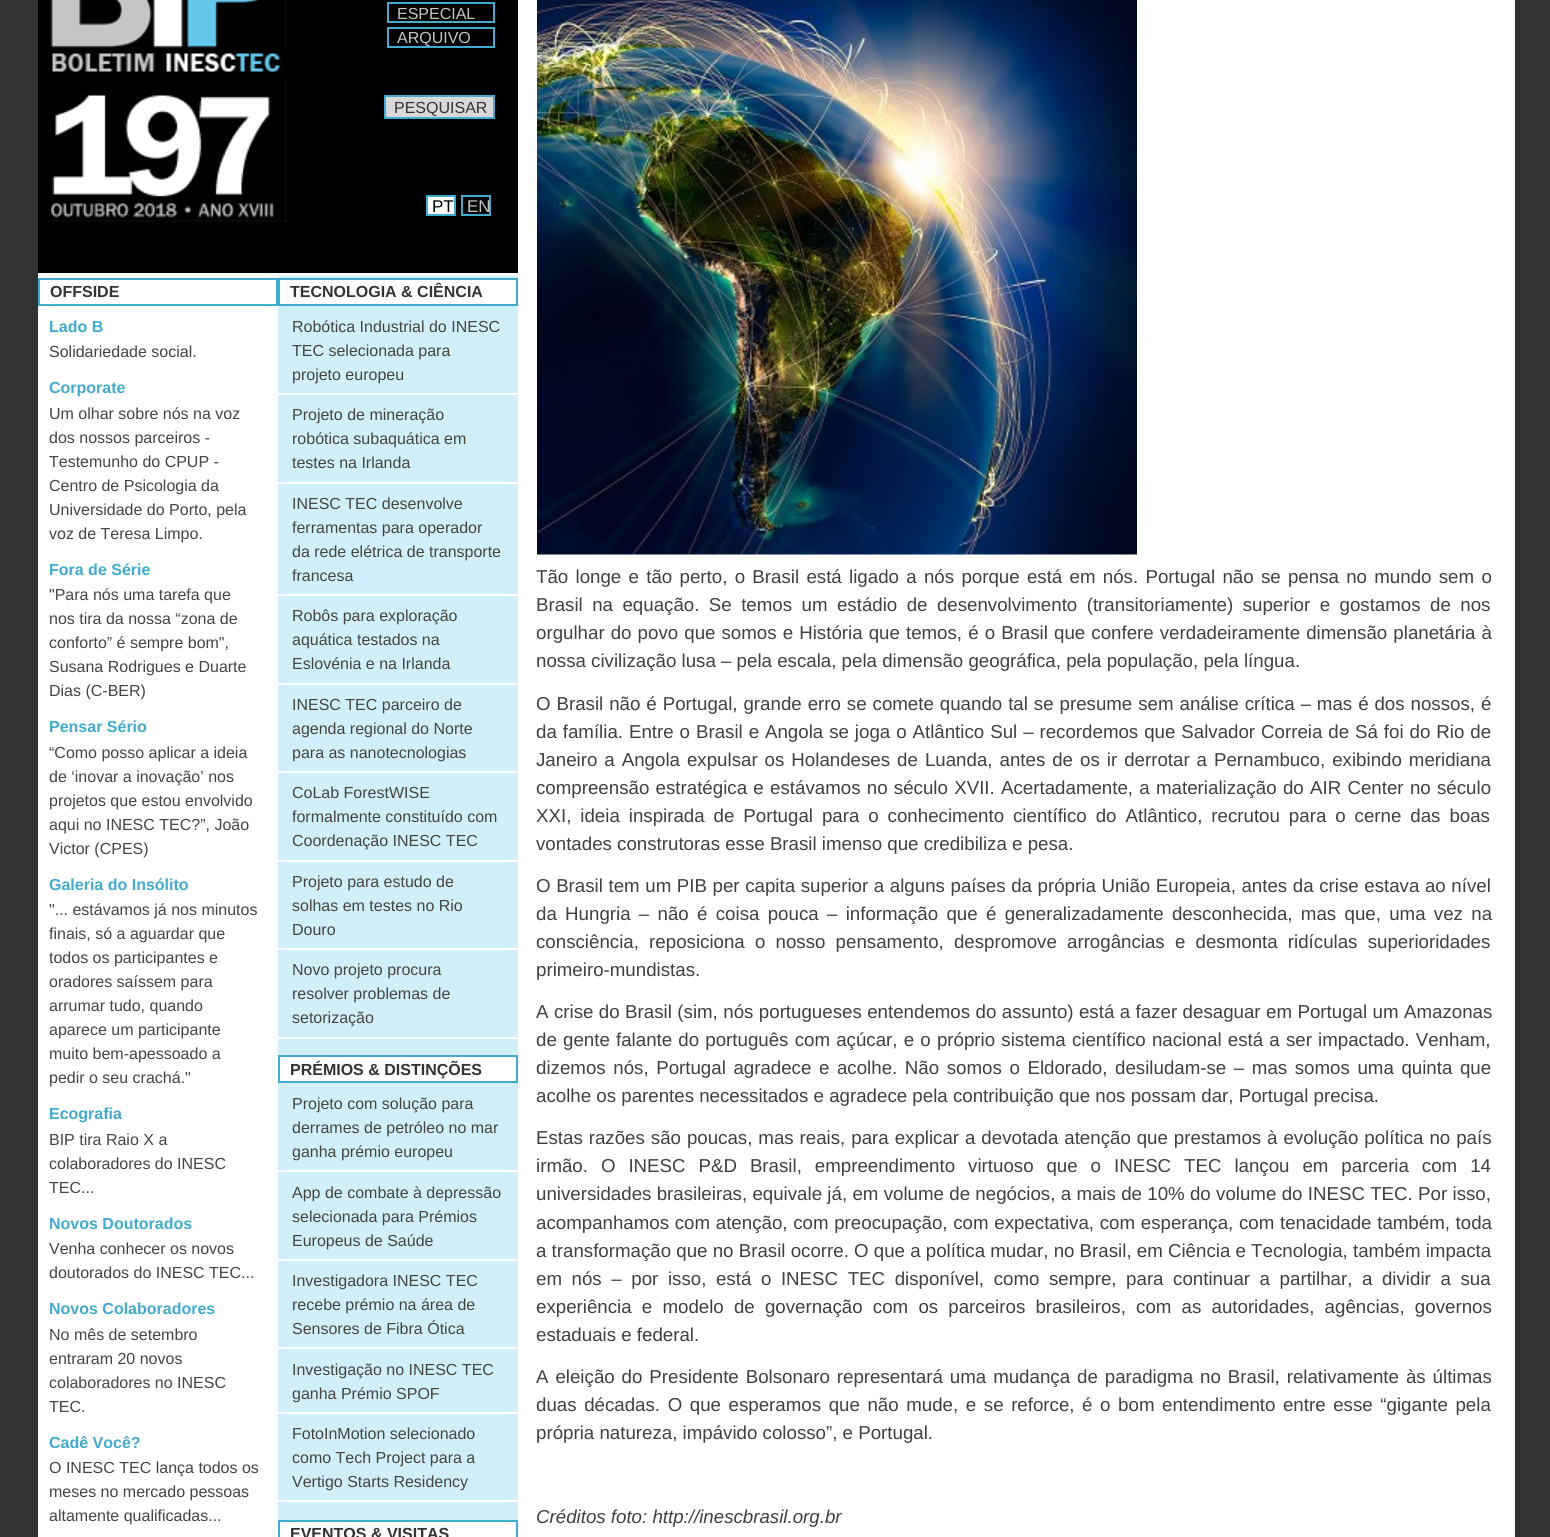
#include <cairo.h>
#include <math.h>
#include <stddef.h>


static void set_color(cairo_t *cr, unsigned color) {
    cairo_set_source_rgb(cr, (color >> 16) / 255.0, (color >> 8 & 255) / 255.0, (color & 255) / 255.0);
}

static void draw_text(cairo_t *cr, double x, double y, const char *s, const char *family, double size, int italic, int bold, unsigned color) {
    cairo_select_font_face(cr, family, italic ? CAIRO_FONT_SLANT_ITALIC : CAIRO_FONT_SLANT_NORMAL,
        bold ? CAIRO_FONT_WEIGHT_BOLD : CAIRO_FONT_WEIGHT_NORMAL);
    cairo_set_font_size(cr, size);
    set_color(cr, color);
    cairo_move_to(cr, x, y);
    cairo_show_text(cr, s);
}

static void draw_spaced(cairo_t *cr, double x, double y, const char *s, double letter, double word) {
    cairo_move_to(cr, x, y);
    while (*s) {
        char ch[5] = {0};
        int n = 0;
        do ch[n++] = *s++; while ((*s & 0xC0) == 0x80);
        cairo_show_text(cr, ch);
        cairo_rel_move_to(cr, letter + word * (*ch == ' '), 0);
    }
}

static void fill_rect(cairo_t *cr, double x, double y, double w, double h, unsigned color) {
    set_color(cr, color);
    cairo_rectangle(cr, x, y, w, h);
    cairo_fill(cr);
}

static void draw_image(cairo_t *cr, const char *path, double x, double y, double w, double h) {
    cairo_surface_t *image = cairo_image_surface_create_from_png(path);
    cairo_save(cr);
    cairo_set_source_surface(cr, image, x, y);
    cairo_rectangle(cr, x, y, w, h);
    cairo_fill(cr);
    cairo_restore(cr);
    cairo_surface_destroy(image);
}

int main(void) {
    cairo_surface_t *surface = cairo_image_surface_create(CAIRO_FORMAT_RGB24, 1550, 1537);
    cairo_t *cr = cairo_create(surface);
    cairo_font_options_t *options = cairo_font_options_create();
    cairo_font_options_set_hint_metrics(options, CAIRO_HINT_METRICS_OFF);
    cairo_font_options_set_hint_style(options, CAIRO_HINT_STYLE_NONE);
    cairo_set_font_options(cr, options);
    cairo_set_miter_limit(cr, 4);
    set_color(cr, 0x333333);
    cairo_paint(cr);
    fill_rect(cr, 38, 0, 1477, 1537, 0xFFFFFF);
    fill_rect(cr, 38, 0, 480, 273, 0x000000);
    draw_image(cr, "assets/img1.png", 46, 0, 241, 222);
    cairo_rectangle(cr, 388, 3, 106, 19);
    set_color(cr, 0x40AACF);
    cairo_stroke(cr);
    draw_text(cr, 397, 19, "ESPECIAL", "Liberation Sans", 16, 0, 0, 0xC5C5C5);
    cairo_rectangle(cr, 388, 28, 106, 19);
    set_color(cr, 0x40AACF);
    cairo_stroke(cr);
    draw_text(cr, 397, 43, "ARQUIVO", "Liberation Sans", 16, 0, 0, 0xC5C5C5);
    set_color(cr, 0xD9D9D9);
    cairo_rectangle(cr, 385, 96, 109, 22);
    cairo_fill_preserve(cr);
    set_color(cr, 0x40AACF);
    cairo_stroke(cr);
    draw_text(cr, 394, 113, "PESQUISAR", "Liberation Sans", 16, 0, 0, 0x333333);
    set_color(cr, 0xFFFFFF);
    cairo_rectangle(cr, 427, 196, 28, 19);
    cairo_fill_preserve(cr);
    set_color(cr, 0x40AACF);
    cairo_stroke(cr);
    draw_text(cr, 432, 212, "PT", "Liberation Sans", 17, 0, 0, 0x000000);
    cairo_rectangle(cr, 462, 196, 28, 19);
    set_color(cr, 0x40AACF);
    cairo_stroke(cr);
    draw_text(cr, 467, 212, "EN", "Liberation Sans", 17, 0, 0, 0xC5C5C5);
    cairo_rectangle(cr, 39, 279, 238, 26);
    set_color(cr, 0x40AACF);
    cairo_stroke(cr);
    draw_text(cr, 50, 297, "OFFSIDE", "Liberation Sans", 16, 0, 1, 0x333333);
    draw_text(cr, 49, 332, "Lado B", "Liberation Sans", 16, 0, 1, 0x40AACF);
    draw_text(cr, 49, 357, "Solidariedade social.", "Liberation Sans", 16, 0, 0, 0x464441);
    draw_text(cr, 49, 393, "Corporate", "Liberation Sans", 16, 0, 1, 0x40AACF);
    draw_text(cr, 49, 419, "Um olhar sobre nós na voz", "Liberation Sans", 16, 0, 0, 0x464441);
    draw_text(cr, 49, 443, "dos nossos parceiros -", "Liberation Sans", 16, 0, 0, 0x464441);
    draw_text(cr, 49, 467, "Testemunho do CPUP -", "Liberation Sans", 16, 0, 0, 0x464441);
    draw_text(cr, 49, 491, "Centro de Psicologia da", "Liberation Sans", 16, 0, 0, 0x464441);
    draw_text(cr, 49, 515, "Universidade do Porto, pela", "Liberation Sans", 16, 0, 0, 0x464441);
    draw_text(cr, 49, 539, "voz de Teresa Limpo.", "Liberation Sans", 16, 0, 0, 0x464441);
    draw_text(cr, 49, 575, "Fora de Série", "Liberation Sans", 16, 0, 1, 0x40AACF);
    draw_text(cr, 49, 600, "\"Para nós uma tarefa que", "Liberation Sans", 16, 0, 0, 0x464441);
    draw_text(cr, 49, 624, "nos tira da nossa “zona de", "Liberation Sans", 16, 0, 0, 0x464441);
    draw_text(cr, 49, 648, "conforto” é sempre bom\",", "Liberation Sans", 16, 0, 0, 0x464441);
    draw_text(cr, 49, 672, "Susana Rodrigues e Duarte", "Liberation Sans", 16, 0, 0, 0x464441);
    draw_text(cr, 49, 696, "Dias (C-BER)", "Liberation Sans", 16, 0, 0, 0x464441);
    draw_text(cr, 49, 732, "Pensar Sério", "Liberation Sans", 16, 0, 1, 0x40AACF);
    draw_text(cr, 49, 758, "“Como posso aplicar a ideia", "Liberation Sans", 16, 0, 0, 0x464441);
    draw_text(cr, 49, 782, "de ‘inovar a inovação’ nos", "Liberation Sans", 16, 0, 0, 0x464441);
    draw_text(cr, 49, 806, "projetos que estou envolvido", "Liberation Sans", 16, 0, 0, 0x464441);
    draw_text(cr, 49, 830, "aqui no INESC TEC?”, João", "Liberation Sans", 16, 0, 0, 0x464441);
    draw_text(cr, 49, 854, "Victor (CPES)", "Liberation Sans", 16, 0, 0, 0x464441);
    draw_text(cr, 49, 890, "Galeria do Insólito", "Liberation Sans", 16, 0, 1, 0x40AACF);
    draw_text(cr, 49, 915, "\"... estávamos já nos minutos", "Liberation Sans", 16, 0, 0, 0x464441);
    draw_text(cr, 49, 939, "finais, só a aguardar que", "Liberation Sans", 16, 0, 0, 0x464441);
    draw_text(cr, 49, 963, "todos os participantes e", "Liberation Sans", 16, 0, 0, 0x464441);
    draw_text(cr, 49, 987, "oradores saíssem para", "Liberation Sans", 16, 0, 0, 0x464441);
    draw_text(cr, 49, 1011, "arrumar tudo, quando", "Liberation Sans", 16, 0, 0, 0x464441);
    draw_text(cr, 49, 1035, "aparece um participante", "Liberation Sans", 16, 0, 0, 0x464441);
    draw_text(cr, 49, 1059, "muito bem-apessoado a", "Liberation Sans", 16, 0, 0, 0x464441);
    draw_text(cr, 49, 1083, "pedir o seu crachá.\"", "Liberation Sans", 16, 0, 0, 0x464441);
    draw_text(cr, 49, 1119, "Ecografia", "Liberation Sans", 16, 0, 1, 0x40AACF);
    draw_text(cr, 49, 1145, "BIP tira Raio X a", "Liberation Sans", 16, 0, 0, 0x464441);
    draw_text(cr, 49, 1169, "colaboradores do INESC", "Liberation Sans", 16, 0, 0, 0x464441);
    draw_text(cr, 49, 1193, "TEC...", "Liberation Sans", 16, 0, 0, 0x464441);
    draw_text(cr, 49, 1229, "Novos Doutorados", "Liberation Sans", 16, 0, 1, 0x40AACF);
    draw_text(cr, 49, 1254, "Venha conhecer os novos", "Liberation Sans", 16, 0, 0, 0x464441);
    draw_text(cr, 49, 1278, "doutorados do INESC TEC...", "Liberation Sans", 16, 0, 0, 0x464441);
    draw_text(cr, 49, 1314, "Novos Colaboradores", "Liberation Sans", 16, 0, 1, 0x40AACF);
    draw_text(cr, 49, 1340, "No mês de setembro", "Liberation Sans", 16, 0, 0, 0x464441);
    draw_text(cr, 49, 1364, "entraram 20 novos", "Liberation Sans", 16, 0, 0, 0x464441);
    draw_text(cr, 49, 1388, "colaboradores no INESC", "Liberation Sans", 16, 0, 0, 0x464441);
    draw_text(cr, 49, 1412, "TEC.", "Liberation Sans", 16, 0, 0, 0x464441);
    draw_text(cr, 49, 1448, "Cadê Você?", "Liberation Sans", 16, 0, 1, 0x40AACF);
    draw_text(cr, 49, 1473, "O INESC TEC lança todos os", "Liberation Sans", 16, 0, 0, 0x464441);
    draw_text(cr, 49, 1497, "meses no mercado pessoas", "Liberation Sans", 16, 0, 0, 0x464441);
    draw_text(cr, 49, 1521, "altamente qualificadas...", "Liberation Sans", 16, 0, 0, 0x464441);
    fill_rect(cr, 278, 276, 240, 1244, 0xD1EFFA);
    set_color(cr, 0xFFFFFF);
    cairo_rectangle(cr, 279, 279, 238, 26);
    cairo_fill_preserve(cr);
    set_color(cr, 0x40AACF);
    cairo_stroke(cr);
    draw_text(cr, 290, 297, "TECNOLOGIA & CIÊNCIA", "Liberation Sans", 16, 0, 1, 0x333333);
    fill_rect(cr, 278, 393, 240, 2, 0xFFFFFF);
    draw_text(cr, 292, 332, "Robótica Industrial do INESC", "Liberation Sans", 16, 0, 0, 0x464441);
    draw_text(cr, 292, 356, "TEC selecionada para", "Liberation Sans", 16, 0, 0, 0x464441);
    draw_text(cr, 292, 380, "projeto europeu", "Liberation Sans", 16, 0, 0, 0x464441);
    fill_rect(cr, 278, 482, 240, 2, 0xFFFFFF);
    draw_text(cr, 292, 420, "Projeto de mineração", "Liberation Sans", 16, 0, 0, 0x464441);
    draw_text(cr, 292, 444, "robótica subaquática em", "Liberation Sans", 16, 0, 0, 0x464441);
    draw_text(cr, 292, 468, "testes na Irlanda", "Liberation Sans", 16, 0, 0, 0x464441);
    fill_rect(cr, 278, 594, 240, 2, 0xFFFFFF);
    draw_text(cr, 292, 509, "INESC TEC desenvolve", "Liberation Sans", 16, 0, 0, 0x464441);
    draw_text(cr, 292, 533, "ferramentas para operador", "Liberation Sans", 16, 0, 0, 0x464441);
    draw_text(cr, 292, 557, "da rede elétrica de transporte", "Liberation Sans", 16, 0, 0, 0x464441);
    draw_text(cr, 292, 581, "francesa", "Liberation Sans", 16, 0, 0, 0x464441);
    fill_rect(cr, 278, 683, 240, 2, 0xFFFFFF);
    draw_text(cr, 292, 621, "Robôs para exploração", "Liberation Sans", 16, 0, 0, 0x464441);
    draw_text(cr, 292, 645, "aquática testados na", "Liberation Sans", 16, 0, 0, 0x464441);
    draw_text(cr, 292, 669, "Eslovénia e na Irlanda", "Liberation Sans", 16, 0, 0, 0x464441);
    fill_rect(cr, 278, 771, 240, 2, 0xFFFFFF);
    draw_text(cr, 292, 710, "INESC TEC parceiro de", "Liberation Sans", 16, 0, 0, 0x464441);
    draw_text(cr, 292, 734, "agenda regional do Norte", "Liberation Sans", 16, 0, 0, 0x464441);
    draw_text(cr, 292, 758, "para as nanotecnologias", "Liberation Sans", 16, 0, 0, 0x464441);
    fill_rect(cr, 278, 860, 240, 2, 0xFFFFFF);
    draw_text(cr, 292, 798, "CoLab ForestWISE", "Liberation Sans", 16, 0, 0, 0x464441);
    draw_text(cr, 292, 822, "formalmente constituído com", "Liberation Sans", 16, 0, 0, 0x464441);
    draw_text(cr, 292, 846, "Coordenação INESC TEC", "Liberation Sans", 16, 0, 0, 0x464441);
    fill_rect(cr, 278, 948, 240, 2, 0xFFFFFF);
    draw_text(cr, 292, 887, "Projeto para estudo de", "Liberation Sans", 16, 0, 0, 0x464441);
    draw_text(cr, 292, 911, "solhas em testes no Rio", "Liberation Sans", 16, 0, 0, 0x464441);
    draw_text(cr, 292, 935, "Douro", "Liberation Sans", 16, 0, 0, 0x464441);
    fill_rect(cr, 278, 1037, 240, 2, 0xFFFFFF);
    draw_text(cr, 292, 975, "Novo projeto procura", "Liberation Sans", 16, 0, 0, 0x464441);
    draw_text(cr, 292, 999, "resolver problemas de", "Liberation Sans", 16, 0, 0, 0x464441);
    draw_text(cr, 292, 1023, "setorização", "Liberation Sans", 16, 0, 0, 0x464441);
    set_color(cr, 0xFFFFFF);
    cairo_rectangle(cr, 279, 1056, 238, 26);
    cairo_fill_preserve(cr);
    set_color(cr, 0x40AACF);
    cairo_stroke(cr);
    draw_text(cr, 290, 1075, "PRÉMIOS & DISTINÇÕES", "Liberation Sans", 16, 0, 1, 0x333333);
    fill_rect(cr, 278, 1170, 240, 2, 0xFFFFFF);
    draw_text(cr, 292, 1109, "Projeto com solução para", "Liberation Sans", 16, 0, 0, 0x464441);
    draw_text(cr, 292, 1133, "derrames de petróleo no mar", "Liberation Sans", 16, 0, 0, 0x464441);
    draw_text(cr, 292, 1157, "ganha prémio europeu", "Liberation Sans", 16, 0, 0, 0x464441);
    fill_rect(cr, 278, 1259, 240, 2, 0xFFFFFF);
    draw_text(cr, 292, 1198, "App de combate à depressão", "Liberation Sans", 16, 0, 0, 0x464441);
    draw_text(cr, 292, 1222, "selecionada para Prémios", "Liberation Sans", 16, 0, 0, 0x464441);
    draw_text(cr, 292, 1246, "Europeus de Saúde", "Liberation Sans", 16, 0, 0, 0x464441);
    fill_rect(cr, 278, 1347, 240, 2, 0xFFFFFF);
    draw_text(cr, 292, 1286, "Investigadora INESC TEC", "Liberation Sans", 16, 0, 0, 0x464441);
    draw_text(cr, 292, 1310, "recebe prémio na área de", "Liberation Sans", 16, 0, 0, 0x464441);
    draw_text(cr, 292, 1334, "Sensores de Fibra Ótica", "Liberation Sans", 16, 0, 0, 0x464441);
    fill_rect(cr, 278, 1412, 240, 2, 0xFFFFFF);
    draw_text(cr, 292, 1375, "Investigação no INESC TEC", "Liberation Sans", 16, 0, 0, 0x464441);
    draw_text(cr, 292, 1399, "ganha Prémio SPOF", "Liberation Sans", 16, 0, 0, 0x464441);
    fill_rect(cr, 278, 1500, 240, 2, 0xFFFFFF);
    draw_text(cr, 292, 1439, "FotoInMotion selecionado", "Liberation Sans", 16, 0, 0, 0x464441);
    draw_text(cr, 292, 1463, "como Tech Project para a", "Liberation Sans", 16, 0, 0, 0x464441);
    draw_text(cr, 292, 1487, "Vertigo Starts Residency", "Liberation Sans", 16, 0, 0, 0x464441);
    cairo_rectangle(cr, 279, 1521, 238, 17);
    set_color(cr, 0x40AACF);
    cairo_stroke(cr);
    draw_text(cr, 290, 1539, "EVENTOS & VISITAS", "Liberation Sans", 16, 0, 1, 0x333333);
    draw_image(cr, "assets/img2.png", 537, 0, 600, 555);
    cairo_select_font_face(cr, "Liberation Sans", CAIRO_FONT_SLANT_NORMAL, CAIRO_FONT_WEIGHT_NORMAL);
    cairo_set_font_size(cr, 18.7);
    set_color(cr, 0x404040);
    draw_spaced(cr, 536, 583, "Tão longe e tão perto, o Brasil está ligado a nós porque está em nós. Portugal não se pensa no mundo sem o", 0, 2.1);
    draw_spaced(cr, 536, 611, "Brasil na equação. Se temos um estádio de desenvolvimento (transitoriamente) superior e gostamos de nos", 0, 4.25);
    draw_spaced(cr, 536, 639, "orgulhar do povo que somos e História que temos, é o Brasil que confere verdadeiramente dimensão planetária à", 0, 0.9);
    draw_text(cr, 536, 667, "nossa civilização lusa – pela escala, pela dimensão geográfica, pela população, pela língua.", "Liberation Sans", 18.7, 0, 0, 0x404040);
    draw_spaced(cr, 536, 710, "O Brasil não é Portugal, grande erro se comete quando tal se presume sem análise crítica – mas é dos nossos, é", 0, 0.75);
    draw_spaced(cr, 536, 738, "da família. Entre o Brasil e Angola se joga o Atlântico Sul – recordemos que Salvador Correia de Sá foi do Rio de", 0, 0.75);
    draw_spaced(cr, 536, 766, "Janeiro a Angola expulsar os Holandeses de Luanda, antes de os ir derrotar a Pernambuco, exibindo meridiana", 0, 1.8);
    draw_spaced(cr, 536, 794, "compreensão estratégica e estávamos no século XVII. Acertadamente, a materialização do AIR Center no século", 0, 1.1);
    draw_spaced(cr, 536, 822, "XXI, ideia inspirada de Portugal para o conhecimento científico do Atlântico, recrutou para o cerne das boas", 0, 3.75);
    draw_text(cr, 536, 850, "vontades construtoras esse Brasil imenso que credibiliza e pesa.", "Liberation Sans", 18.7, 0, 0, 0x404040);
    draw_spaced(cr, 536, 892, "O Brasil tem um PIB per capita superior a alguns países da própria União Europeia, antes da crise estava ao nível", 0, 0.4);
    draw_spaced(cr, 536, 920, "da Hungria – não é coisa pouca – informação que é generalizadamente desconhecida, mas que, uma vez na", 0, 3.1);
    draw_spaced(cr, 536, 948, "consciência, reposiciona o nosso pensamento, despromove arrogâncias e desmonta ridículas superioridades", 0, 5);
    draw_text(cr, 536, 976, "primeiro-mundistas.", "Liberation Sans", 18.7, 0, 0, 0x404040);
    draw_spaced(cr, 536, 1018, "A crise do Brasil (sim, nós portugueses entendemos do assunto) está a fazer desaguar em Portugal um Amazonas", 0, 0.25);
    draw_spaced(cr, 536, 1046, "de gente falante do português com açúcar, e o próprio sistema científico nacional está a ser impactado. Venham,", 0, 1);
    draw_spaced(cr, 536, 1074, "dizemos nós, Portugal agradece e acolhe. Não somos o Eldorado, desiludam-se – mas somos uma quinta que", 0, 2.4);
    draw_text(cr, 536, 1102, "acolhe os parentes necessitados e agradece pela contribuição que nos possam dar, Portugal precisa.", "Liberation Sans", 18.7, 0, 0, 0x404040);
    draw_spaced(cr, 536, 1144, "Estas razões são poucas, mas reais, para explicar a devotada atenção que prestamos à evolução política no país", 0, 0.75);
    draw_spaced(cr, 536, 1172, "irmão. O INESC P&D Brasil, empreendimento virtuoso que o INESC TEC lançou em parceria com 14", 0, 7.75);
    draw_spaced(cr, 536, 1200, "universidades brasileiras, equivale já, em volume de negócios, a mais de 10% do volume do INESC TEC. Por isso,", 0, 0.1);
    draw_spaced(cr, 536, 1229, "acompanhamos com atenção, com preocupação, com expectativa, com esperança, com tenacidade também, toda", 0, 0.5);
    draw_text(cr, 536, 1257, "a transformação que no Brasil ocorre. O que a política mudar, no Brasil, em Ciência e Tecnologia, também impacta", "Liberation Sans", 18.7, 0, 0, 0x404040);
    draw_spaced(cr, 536, 1285, "em nós – por isso, está o INESC TEC disponível, como sempre, para continuar a partilhar, a dividir a sua", 0, 4.4);
    draw_spaced(cr, 536, 1313, "experiência e modelo de governação com os parceiros brasileiros, com as autoridades, agências, governos", 0, 5);
    draw_text(cr, 536, 1341, "estaduais e federal.", "Liberation Sans", 18.7, 0, 0, 0x404040);
    draw_spaced(cr, 536, 1383, "A eleição do Presidente Bolsonaro representará uma mudança de paradigma no Brasil, relativamente às últimas", 0, 1.75);
    draw_spaced(cr, 536, 1411, "duas décadas. O que esperamos que não mude, e se reforce, é o bom entendimento entre esse “gigante pela", 0, 2.4);
    draw_text(cr, 536, 1439, "própria natureza, impávido colosso”, e Portugal.", "Liberation Sans", 18.7, 0, 0, 0x404040);
    draw_text(cr, 536, 1523, "Créditos foto: http://inescbrasil.org.br", "Liberation Sans", 18.7, 1, 0, 0x404040);
    cairo_surface_write_to_png(surface, "output.png");
    cairo_font_options_destroy(options);
    cairo_destroy(cr);
    cairo_surface_destroy(surface);
    return 0;
}
